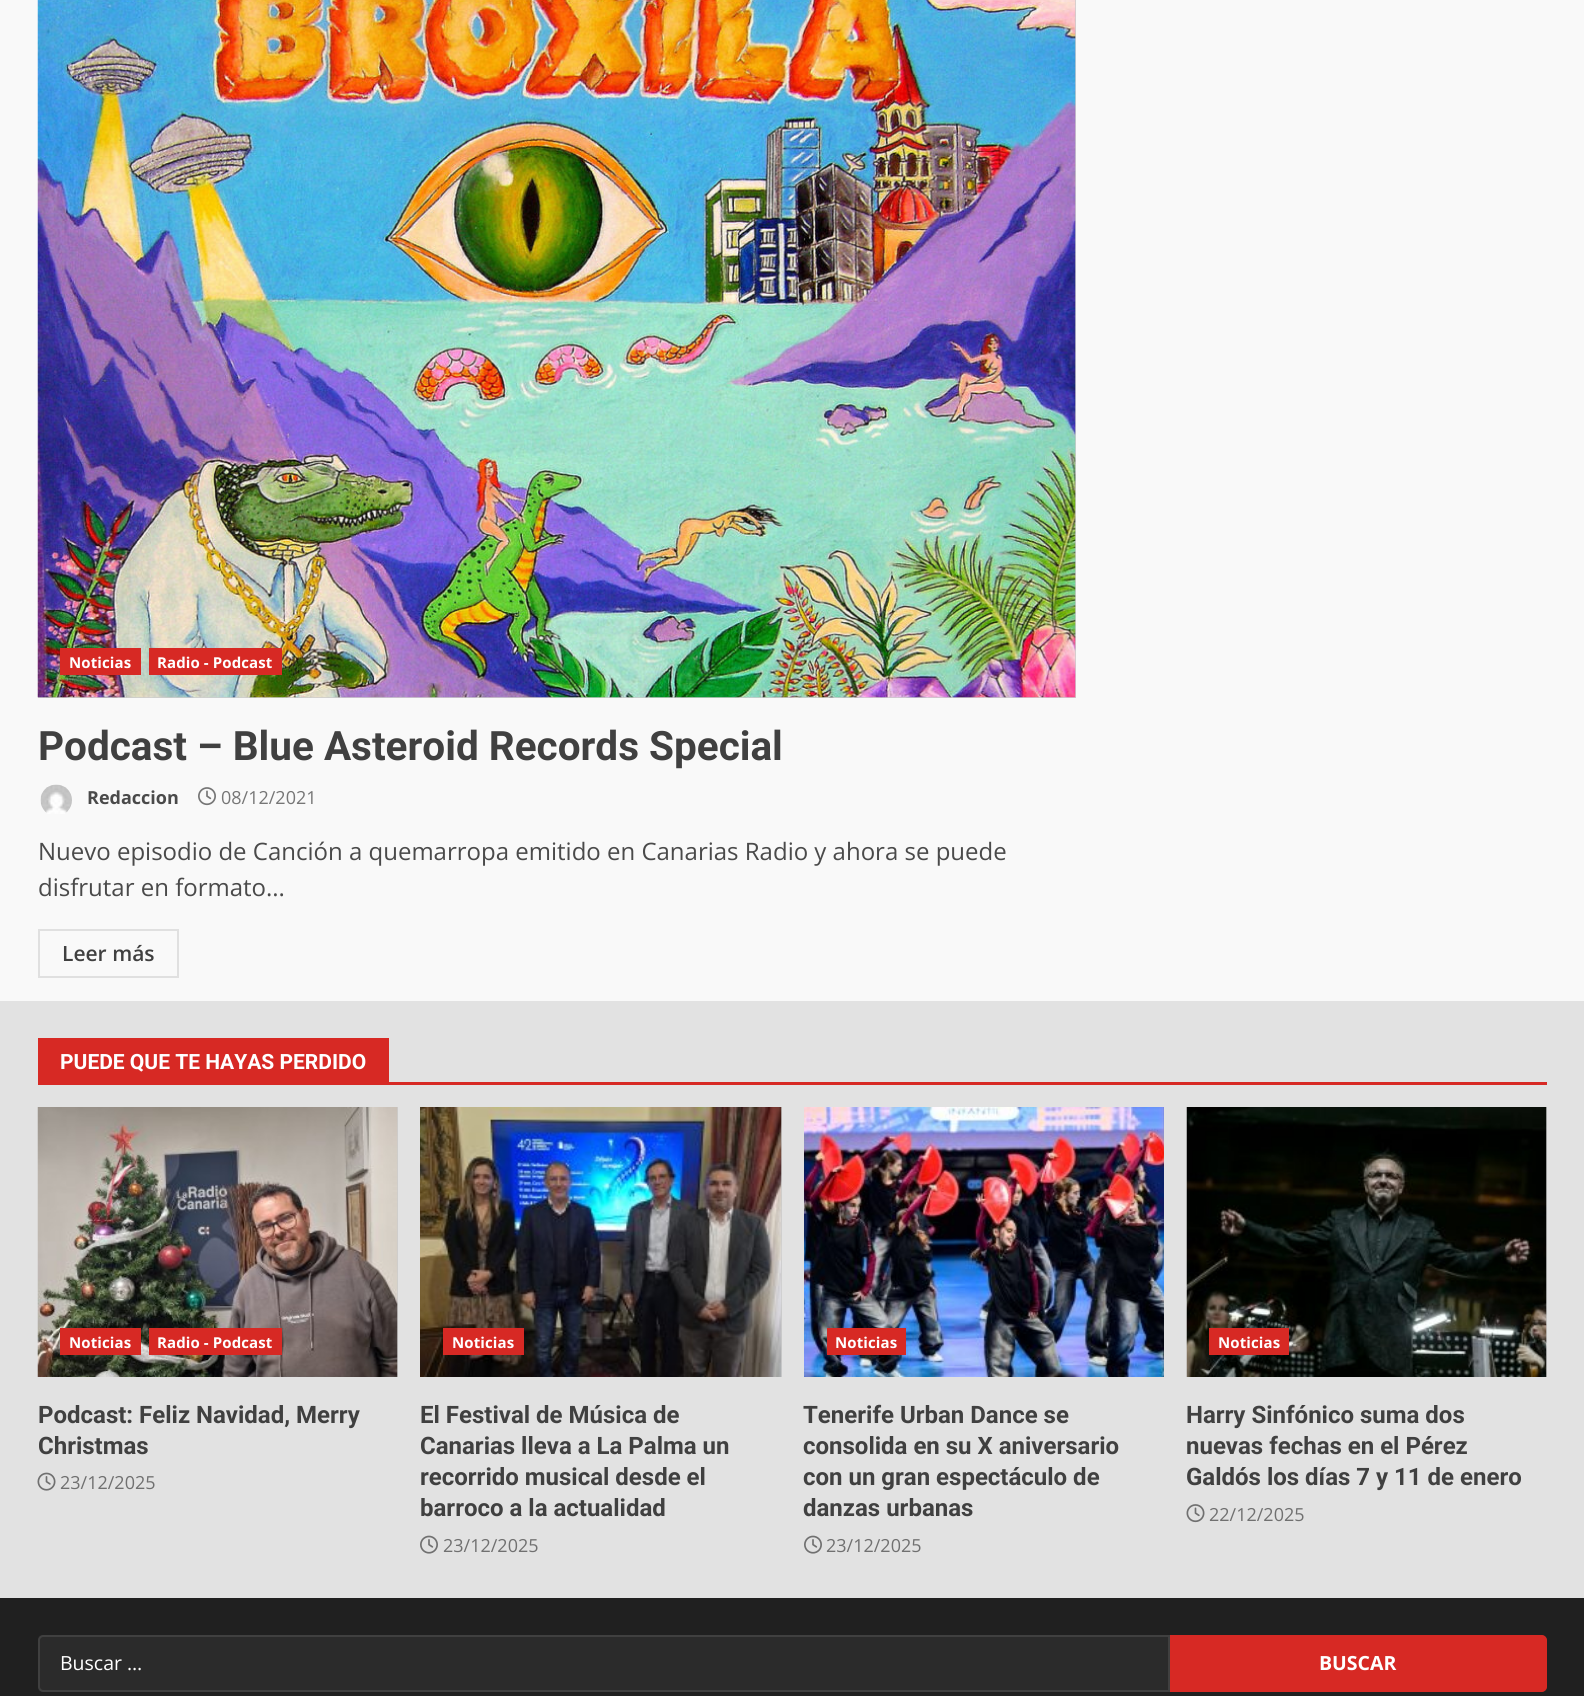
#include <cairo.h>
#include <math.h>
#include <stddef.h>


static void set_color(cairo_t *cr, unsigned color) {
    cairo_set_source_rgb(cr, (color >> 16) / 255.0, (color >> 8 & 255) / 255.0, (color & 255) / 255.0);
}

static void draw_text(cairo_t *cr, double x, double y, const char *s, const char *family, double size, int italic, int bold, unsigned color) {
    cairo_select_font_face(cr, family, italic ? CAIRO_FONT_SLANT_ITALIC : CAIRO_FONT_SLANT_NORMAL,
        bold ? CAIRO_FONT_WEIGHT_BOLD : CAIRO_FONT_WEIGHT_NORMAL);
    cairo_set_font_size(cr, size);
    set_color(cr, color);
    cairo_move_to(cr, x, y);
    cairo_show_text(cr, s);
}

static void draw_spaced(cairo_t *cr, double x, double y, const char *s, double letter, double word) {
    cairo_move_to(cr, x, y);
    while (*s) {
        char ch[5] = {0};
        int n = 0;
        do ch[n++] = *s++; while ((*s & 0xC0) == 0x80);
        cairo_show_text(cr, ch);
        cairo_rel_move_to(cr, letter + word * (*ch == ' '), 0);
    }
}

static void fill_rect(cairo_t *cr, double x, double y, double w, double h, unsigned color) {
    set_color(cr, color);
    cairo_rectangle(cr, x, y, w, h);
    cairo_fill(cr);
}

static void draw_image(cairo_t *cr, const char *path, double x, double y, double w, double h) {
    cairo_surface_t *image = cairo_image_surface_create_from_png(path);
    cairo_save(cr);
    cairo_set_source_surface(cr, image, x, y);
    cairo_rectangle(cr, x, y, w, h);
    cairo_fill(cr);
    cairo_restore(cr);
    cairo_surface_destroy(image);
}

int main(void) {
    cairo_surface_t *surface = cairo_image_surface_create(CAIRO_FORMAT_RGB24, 1584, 1696);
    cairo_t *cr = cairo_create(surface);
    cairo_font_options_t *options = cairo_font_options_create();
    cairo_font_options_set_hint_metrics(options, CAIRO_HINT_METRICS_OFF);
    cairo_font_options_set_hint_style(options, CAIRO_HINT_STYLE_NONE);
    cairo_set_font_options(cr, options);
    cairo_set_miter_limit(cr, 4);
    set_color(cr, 0xF9F9F9);
    cairo_paint(cr);
    fill_rect(cr, 38, 0, 1038, 698, 0xCCCCCC);
    draw_image(cr, "assets/img1.png", 37, 0, 1039, 698);
    fill_rect(cr, 60, 648, 81, 27, 0xD72924);
    cairo_select_font_face(cr, "Open Sans", CAIRO_FONT_SLANT_NORMAL, CAIRO_FONT_WEIGHT_BOLD);
    cairo_set_font_size(cr, 15);
    set_color(cr, 0xFFFFFF);
    draw_spaced(cr, 69, 668, "Noticias", 0.1, 0);
    fill_rect(cr, 149, 648, 133, 27, 0xD72924);
    set_color(cr, 0xFFFFFF);
    draw_spaced(cr, 157, 668, "Radio - Podcast", 0.1, 0);
    draw_text(cr, 38, 760, "Podcast – Blue Asteroid Records Special", "Roboto", 40.5, 0, 1, 0x404040);
    draw_image(cr, "assets/img2.png", 40, 784, 32, 30);
    draw_text(cr, 87, 804, "Redaccion", "Open Sans", 18, 0, 1, 0x4A4A4A);
    draw_image(cr, "assets/img3.png", 198, 787, 18, 19);
    draw_text(cr, 221, 804, "08/12/2021", "Open Sans", 18, 0, 0, 0x767676);
    draw_text(cr, 38, 860, "Nuevo episodio de Canción a quemarropa emitido en Canarias Radio y ahora se puede", "Open Sans", 24, 0, 0, 0x4A4A4A);
    draw_text(cr, 38, 896, "disfrutar en formato...", "Open Sans", 24, 0, 0, 0x4A4A4A);
    cairo_rectangle(cr, 39, 930, 139, 47);
    set_color(cr, 0xE0E0E0);
    cairo_stroke(cr);
    draw_text(cr, 62, 961, "Leer más", "Open Sans SemiBold", 21, 0, 0, 0x404040);
    fill_rect(cr, 0, 1001, 1584, 597, 0xE2E2E2);
    fill_rect(cr, 38, 1082, 1509, 3, 0xD72924);
    fill_rect(cr, 38, 1038, 351, 44, 0xD72924);
    draw_text(cr, 60, 1069, "PUEDE QUE TE HAYAS PERDIDO", "Roboto", 21, 0, 1, 0xFFFFFF);
    fill_rect(cr, 397, 1107, 1, 270, 0xCCCCCC);
    draw_image(cr, "assets/img4.png", 37, 1107, 361, 270);
    fill_rect(cr, 60, 1328, 81, 27, 0xD72924);
    cairo_select_font_face(cr, "Open Sans", CAIRO_FONT_SLANT_NORMAL, CAIRO_FONT_WEIGHT_BOLD);
    cairo_set_font_size(cr, 15);
    set_color(cr, 0xFFFFFF);
    draw_spaced(cr, 69, 1348, "Noticias", 0.1, 0);
    fill_rect(cr, 149, 1328, 133, 27, 0xD72924);
    set_color(cr, 0xFFFFFF);
    draw_spaced(cr, 157, 1348, "Radio - Podcast", 0.1, 0);
    draw_text(cr, 38, 1423, "Podcast: Feliz Navidad, Merry", "Roboto", 24, 0, 1, 0x404040);
    draw_text(cr, 38, 1454, "Christmas", "Roboto", 24, 0, 1, 0x404040);
    draw_image(cr, "assets/img5.png", 37, 1472, 19, 19);
    draw_text(cr, 60, 1489, "23/12/2025", "Open Sans", 18, 0, 0, 0x707070);
    fill_rect(cr, 781, 1107, 1, 270, 0xCCCCCC);
    draw_image(cr, "assets/img6.png", 420, 1107, 362, 270);
    fill_rect(cr, 443, 1328, 81, 27, 0xD72924);
    cairo_select_font_face(cr, "Open Sans", CAIRO_FONT_SLANT_NORMAL, CAIRO_FONT_WEIGHT_BOLD);
    cairo_set_font_size(cr, 15);
    set_color(cr, 0xFFFFFF);
    draw_spaced(cr, 452, 1348, "Noticias", 0.1, 0);
    draw_text(cr, 420, 1423, "El Festival de Música de", "Roboto", 24, 0, 1, 0x404040);
    draw_text(cr, 420, 1454, "Canarias lleva a La Palma un", "Roboto", 24, 0, 1, 0x404040);
    draw_text(cr, 420, 1485, "recorrido musical desde el", "Roboto", 24, 0, 1, 0x404040);
    draw_text(cr, 420, 1516, "barroco a la actualidad", "Roboto", 24, 0, 1, 0x404040);
    draw_image(cr, "assets/img7.png", 420, 1535, 18, 19);
    draw_text(cr, 443, 1552, "23/12/2025", "Open Sans", 18, 0, 0, 0x707070);
    draw_image(cr, "assets/img8.png", 804, 1107, 360, 270);
    fill_rect(cr, 827, 1328, 79, 27, 0xD72924);
    cairo_select_font_face(cr, "Open Sans", CAIRO_FONT_SLANT_NORMAL, CAIRO_FONT_WEIGHT_BOLD);
    cairo_set_font_size(cr, 15);
    set_color(cr, 0xFFFFFF);
    draw_spaced(cr, 835, 1348, "Noticias", 0.1, 0);
    draw_text(cr, 803, 1423, "Tenerife Urban Dance se", "Roboto", 24, 0, 1, 0x404040);
    draw_text(cr, 803, 1454, "consolida en su X aniversario", "Roboto", 24, 0, 1, 0x404040);
    draw_text(cr, 803, 1485, "con un gran espectáculo de", "Roboto", 24, 0, 1, 0x404040);
    draw_text(cr, 803, 1516, "danzas urbanas", "Roboto", 24, 0, 1, 0x404040);
    draw_image(cr, "assets/img7.png", 804, 1535, 18, 19);
    draw_text(cr, 826, 1552, "23/12/2025", "Open Sans", 18, 0, 0, 0x707070);
    fill_rect(cr, 1546, 1107, 1, 270, 0xCCCCCC);
    draw_image(cr, "assets/img9.png", 1186, 1107, 361, 270);
    fill_rect(cr, 1209, 1328, 80, 27, 0xD72924);
    cairo_select_font_face(cr, "Open Sans", CAIRO_FONT_SLANT_NORMAL, CAIRO_FONT_WEIGHT_BOLD);
    cairo_set_font_size(cr, 15);
    set_color(cr, 0xFFFFFF);
    draw_spaced(cr, 1218, 1348, "Noticias", 0.1, 0);
    draw_text(cr, 1186, 1423, "Harry Sinfónico suma dos", "Roboto", 24, 0, 1, 0x404040);
    draw_text(cr, 1186, 1454, "nuevas fechas en el Pérez", "Roboto", 24, 0, 1, 0x404040);
    draw_text(cr, 1186, 1485, "Galdós los días 7 y 11 de enero", "Roboto", 24, 0, 1, 0x404040);
    draw_image(cr, "assets/img10.png", 1186, 1504, 19, 19);
    draw_text(cr, 1209, 1521, "22/12/2025", "Open Sans", 18, 0, 0, 0x707070);
    fill_rect(cr, 0, 1598, 1584, 98, 0x202020);
    set_color(cr, 0x2B2B2B);
    cairo_new_path(cr);
    cairo_move_to(cr, 43, 1635);
    cairo_line_to(cr, 1170, 1635);
    cairo_line_to(cr, 1170, 1692);
    cairo_line_to(cr, 43, 1692);
    cairo_curve_to(cr, 40, 1692, 38, 1690, 38, 1687);
    cairo_line_to(cr, 38, 1640);
    cairo_curve_to(cr, 38, 1637, 40, 1635, 43, 1635);
    cairo_close_path(cr);
    cairo_fill(cr);
    cairo_new_path(cr);
    cairo_move_to(cr, 43, 1636);
    cairo_line_to(cr, 1169, 1636);
    cairo_line_to(cr, 1169, 1691);
    cairo_line_to(cr, 43, 1691);
    cairo_curve_to(cr, 41, 1691, 39, 1689, 39, 1687);
    cairo_line_to(cr, 39, 1640);
    cairo_curve_to(cr, 39, 1638, 41, 1636, 43, 1636);
    cairo_close_path(cr);
    cairo_set_source_rgba(cr, 1, 1, 1, 0.1);
    cairo_stroke(cr);
    draw_text(cr, 60, 1670, "Buscar …", "Open Sans", 19.5, 0, 0, 0xFFFFFF);
    set_color(cr, 0xD72924);
    cairo_new_path(cr);
    cairo_move_to(cr, 1171, 1636);
    cairo_line_to(cr, 1542, 1636);
    cairo_curve_to(cr, 1544, 1636, 1546, 1638, 1546, 1640);
    cairo_line_to(cr, 1546, 1687);
    cairo_curve_to(cr, 1546, 1689, 1544, 1691, 1542, 1691);
    cairo_line_to(cr, 1171, 1691);
    cairo_close_path(cr);
    cairo_fill_preserve(cr);
    cairo_stroke(cr);
    draw_text(cr, 1319, 1670, "BUSCAR", "Open Sans", 19.5, 0, 1, 0xFFFFFF);
    cairo_surface_write_to_png(surface, "output.png");
    cairo_font_options_destroy(options);
    cairo_destroy(cr);
    cairo_surface_destroy(surface);
    return 0;
}
